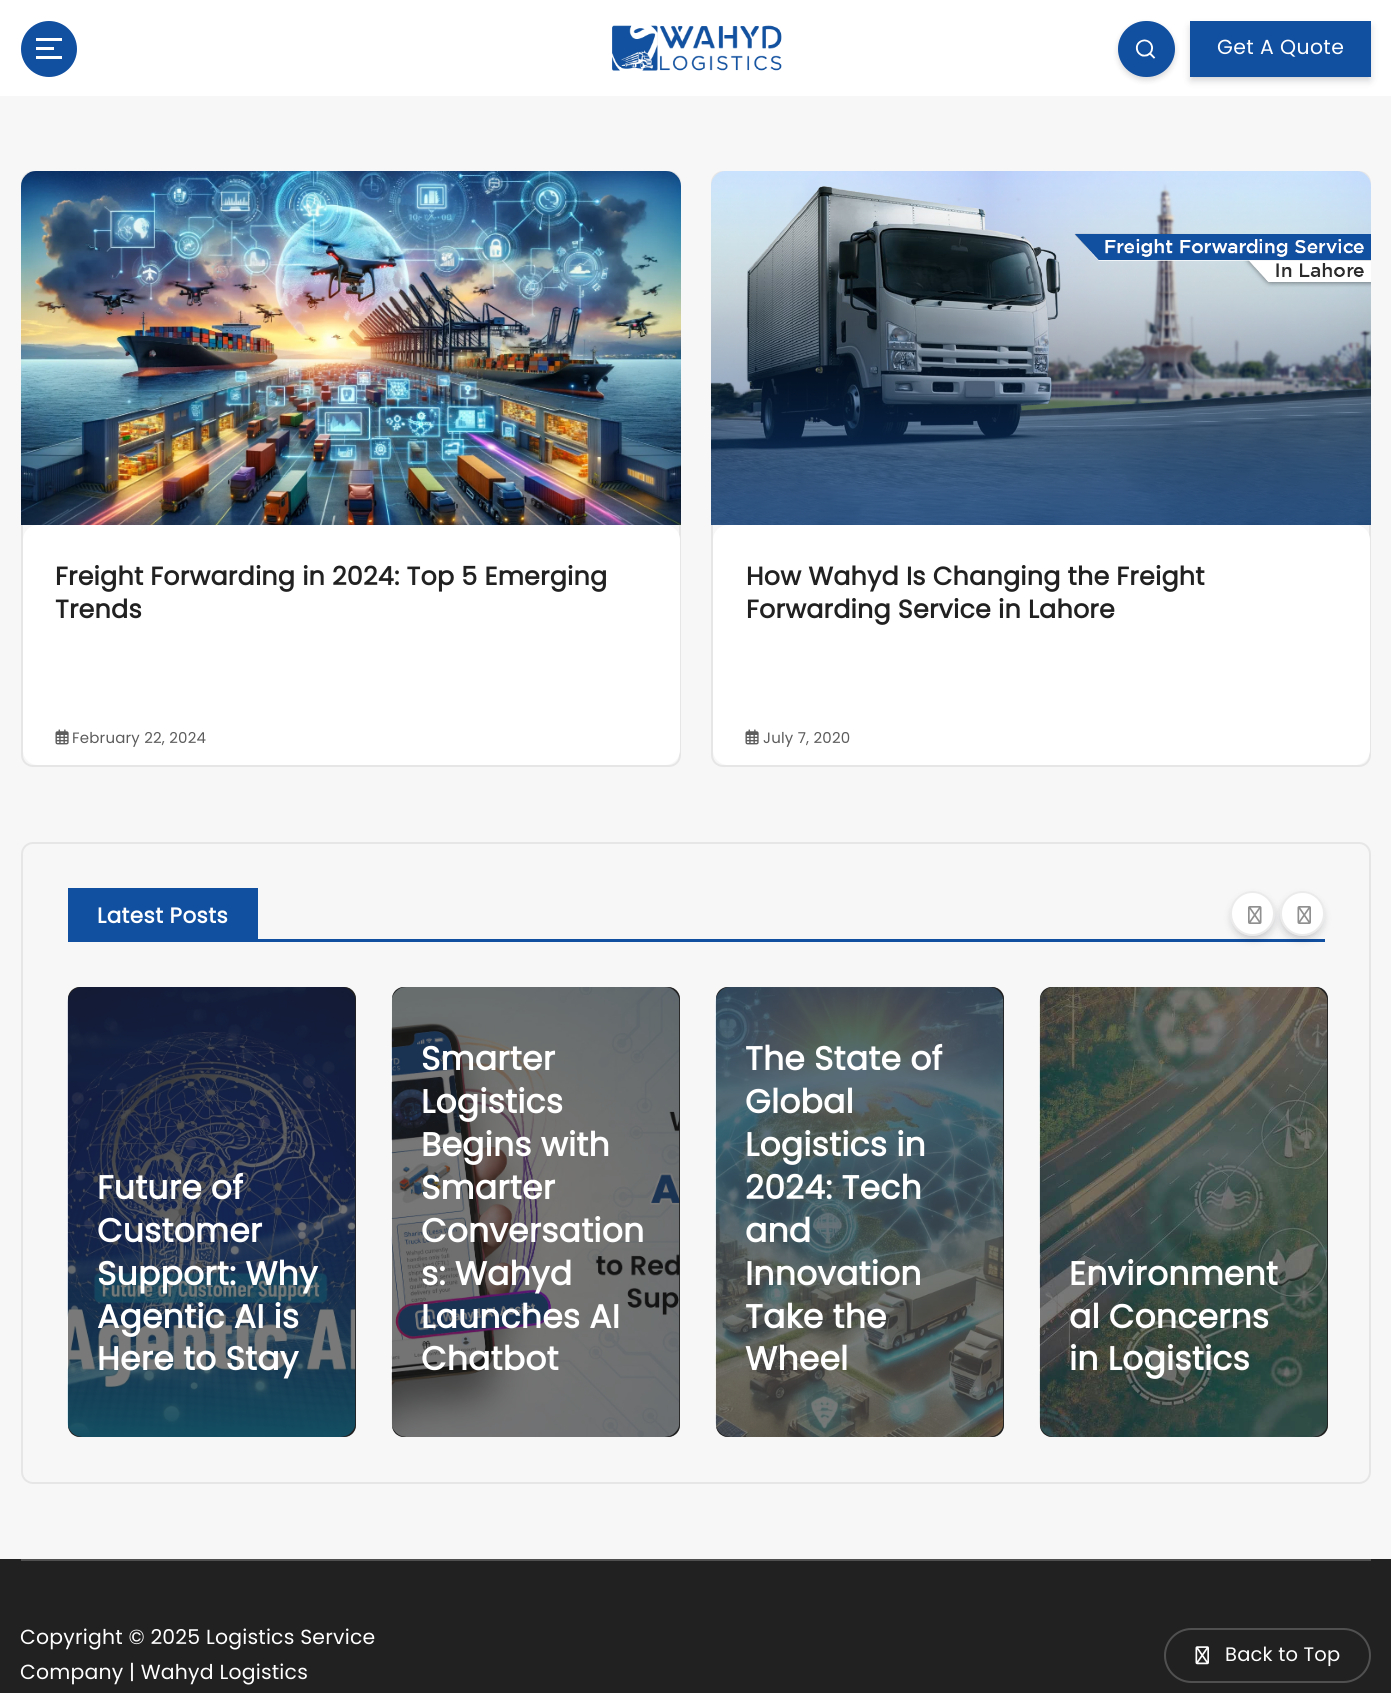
#include <cairo.h>
#include <math.h>
#include <stddef.h>


static void set_color(cairo_t *cr, unsigned color) {
    cairo_set_source_rgb(cr, (color >> 16) / 255.0, (color >> 8 & 255) / 255.0, (color & 255) / 255.0);
}

static void draw_spaced(cairo_t *cr, double x, double y, const char *s, double letter, double word) {
    cairo_move_to(cr, x, y);
    while (*s) {
        char ch[5] = {0};
        int n = 0;
        do ch[n++] = *s++; while ((*s & 0xC0) == 0x80);
        cairo_show_text(cr, ch);
        cairo_rel_move_to(cr, letter + word * (*ch == ' '), 0);
    }
}

static void fill_rect(cairo_t *cr, double x, double y, double w, double h, unsigned color) {
    set_color(cr, color);
    cairo_rectangle(cr, x, y, w, h);
    cairo_fill(cr);
}

static void rounded_rect(cairo_t *cr, double x, double y, double w, double h, double r) {
    cairo_new_sub_path(cr);
    cairo_arc(cr, x + w - r, y + h - r, r, 0, M_PI / 2);
    cairo_arc(cr, x + r, y + h - r, r, M_PI / 2, M_PI);
    cairo_arc(cr, x + r, y + r, r, M_PI, 1.5 * M_PI);
    cairo_arc(cr, x + w - r, y + r, r, 1.5 * M_PI, 2 * M_PI);
    cairo_close_path(cr);
}

static void draw_shadow(cairo_t *cr, double x, double y, double w, double h, double r, double blur, double alpha) {
    cairo_push_group_with_content(cr, CAIRO_CONTENT_ALPHA);
    cairo_set_operator(cr, CAIRO_OPERATOR_SOURCE);
    for (int i = 15; i >= -15 && fmin(w, h) + blur * i / 3 > 0; i -= 2) {
        double e = blur * i / 6;
        cairo_set_source_rgba(cr, 0, 0, 0, alpha * erfc((i - 1) / 8.5) / 2);
        rounded_rect(cr, x - e, y - e, w + 2 * e, h + 2 * e, fmax(0, fmin(r + e + blur * .6, fmin(w, h) / 2 + e)));
        cairo_fill(cr);
    }
    cairo_pattern_t *soft = cairo_pop_group(cr);
    cairo_mask(cr, soft);
    cairo_pattern_destroy(soft);
}

static void draw_image(cairo_t *cr, const char *path, double x, double y, double w, double h) {
    cairo_surface_t *image = cairo_image_surface_create_from_png(path);
    cairo_save(cr);
    cairo_set_source_surface(cr, image, x, y);
    cairo_rectangle(cr, x, y, w, h);
    cairo_fill(cr);
    cairo_restore(cr);
    cairo_surface_destroy(image);
}

int main(void) {
    cairo_surface_t *surface = cairo_image_surface_create(CAIRO_FORMAT_RGB24, 1391, 1693);
    cairo_t *cr = cairo_create(surface);
    cairo_font_options_t *options = cairo_font_options_create();
    cairo_font_options_set_hint_metrics(options, CAIRO_HINT_METRICS_OFF);
    cairo_font_options_set_hint_style(options, CAIRO_HINT_STYLE_NONE);
    cairo_set_font_options(cr, options);
    cairo_set_miter_limit(cr, 4);
    set_color(cr, 0xF7F7F7);
    cairo_paint(cr);
    fill_rect(cr, 0, 0, 1391, 96, 0xFFFFFF);
    set_color(cr, 0x114FA0);
    cairo_arc(cr, 49, 49, 28, 0, 2 * M_PI);
    cairo_fill(cr);
    fill_rect(cr, 36, 38, 26, 3, 0xFFFFFF);
    fill_rect(cr, 36, 47, 18, 3, 0xFFFFFF);
    fill_rect(cr, 36, 56, 26, 3, 0xFFFFFF);
    draw_image(cr, "assets/img1.png", 612, 25, 170, 46);
    set_color(cr, 0x000000);
    draw_shadow(cr, 1118, 24, 57, 56, 28, 3, 0.15);
    set_color(cr, 0x114FA0);
    rounded_rect(cr, 1118, 21, 57, 56, 28);
    cairo_fill(cr);
    draw_image(cr, "assets/img2.png", 1135, 39, 21, 20);
    set_color(cr, 0x070A19);
    draw_shadow(cr, 1191, 27, 179, 53, 0, 4, 0.2);
    fill_rect(cr, 1190, 21, 181, 56, 0x114FA0);
    cairo_select_font_face(cr, "Poppins", CAIRO_FONT_SLANT_NORMAL, CAIRO_FONT_WEIGHT_NORMAL);
    cairo_set_font_size(cr, 20.4);
    set_color(cr, 0xFFFFFF);
    draw_spaced(cr, 1217, 54, "Get A Quote", 0.4, 0);
    rounded_rect(cr, 22, 172, 658, 594, 11);
    set_color(cr, 0xE6E6E6);
    cairo_stroke(cr);
    draw_image(cr, "assets/img3.png", 21, 171, 660, 354);
    set_color(cr, 0xFFFFFF);
    rounded_rect(cr, 23, 525, 657, 240, 15);
    cairo_fill(cr);
    cairo_select_font_face(cr, "Poppins", CAIRO_FONT_SLANT_NORMAL, CAIRO_FONT_WEIGHT_BOLD);
    cairo_set_font_size(cr, 25.4);
    set_color(cr, 0x212121);
    draw_spaced(cr, 55, 585, "Freight Forwarding in 2024: Top 5 Emerging", 0.2, 0);
    draw_spaced(cr, 55, 618, "Trends", 0.2, 0);
    draw_image(cr, "assets/img4.png", 55, 729, 14, 16);
    cairo_select_font_face(cr, "Poppins", CAIRO_FONT_SLANT_NORMAL, CAIRO_FONT_WEIGHT_NORMAL);
    cairo_set_font_size(cr, 15);
    set_color(cr, 0x5C5C5C);
    draw_spaced(cr, 72, 743, "February 22, 2024", 0.2, 0);
    rounded_rect(cr, 712, 172, 658, 594, 11);
    set_color(cr, 0xE6E6E6);
    cairo_stroke(cr);
    draw_image(cr, "assets/img5.png", 711, 171, 660, 354);
    set_color(cr, 0xFFFFFF);
    rounded_rect(cr, 713, 525, 657, 240, 15);
    cairo_fill(cr);
    cairo_select_font_face(cr, "Poppins", CAIRO_FONT_SLANT_NORMAL, CAIRO_FONT_WEIGHT_BOLD);
    cairo_set_font_size(cr, 25.4);
    set_color(cr, 0x212121);
    draw_spaced(cr, 746, 585, "How Wahyd Is Changing the Freight", 0.2, 0);
    draw_spaced(cr, 746, 618, "Forwarding Service in Lahore", 0.2, 0);
    draw_image(cr, "assets/img4.png", 745, 729, 14, 16);
    cairo_select_font_face(cr, "Poppins", CAIRO_FONT_SLANT_NORMAL, CAIRO_FONT_WEIGHT_NORMAL);
    cairo_set_font_size(cr, 15);
    set_color(cr, 0x5C5C5C);
    draw_spaced(cr, 763, 743, "July 7, 2020", 0.2, 0);
    rounded_rect(cr, 22, 843, 1348, 640, 11);
    set_color(cr, 0xE6E6E6);
    cairo_stroke(cr);
    fill_rect(cr, 68, 939, 1257, 3, 0x114FA0);
    fill_rect(cr, 68, 888, 190, 51, 0x114FA0);
    cairo_select_font_face(cr, "Poppins", CAIRO_FONT_SLANT_NORMAL, CAIRO_FONT_WEIGHT_BOLD);
    cairo_set_font_size(cr, 21.5);
    set_color(cr, 0xFFFFFF);
    draw_spaced(cr, 97, 923, "Latest Posts", 0.4, 0);
    set_color(cr, 0x070A19);
    draw_shadow(cr, 1232, 897, 42, 42, 21, 4, 0.2);
    set_color(cr, 0xFFFFFF);
    cairo_arc(cr, 1252.5, 913.5, 22.5, 0, 2 * M_PI);
    cairo_fill(cr);
    cairo_arc(cr, 1252.5, 913.5, 21.5, 0, 2 * M_PI);
    cairo_set_source_rgba(cr, 0.741, 0.741, 0.741, 0.3);
    cairo_stroke(cr);
    draw_image(cr, "assets/img6.png", 1248, 906, 14, 18);
    set_color(cr, 0x070A19);
    draw_shadow(cr, 1281, 897, 42, 42, 21, 4, 0.2);
    set_color(cr, 0xFFFFFF);
    cairo_arc(cr, 1302.5, 913.5, 22.5, 0, 2 * M_PI);
    cairo_fill(cr);
    cairo_arc(cr, 1302.5, 913.5, 21.5, 0, 2 * M_PI);
    cairo_set_source_rgba(cr, 0.741, 0.741, 0.741, 0.3);
    cairo_stroke(cr);
    draw_image(cr, "assets/img7.png", 1297, 906, 14, 18);
    set_color(cr, 0x212121);
    rounded_rect(cr, 68, 987, 288, 450, 12);
    cairo_fill(cr);
    draw_image(cr, "assets/img8.png", 67, 987, 289, 450);
    cairo_set_source_rgba(cr, 0.129, 0.129, 0.129, 0.6);
    rounded_rect(cr, 68, 987, 288, 450, 12);
    cairo_fill(cr);
    cairo_set_font_size(cr, 33);
    set_color(cr, 0xFFFFFF);
    draw_spaced(cr, 97, 1199, "Future of", 0.2, 0);
    draw_spaced(cr, 97, 1242, "Customer", 0.2, 0);
    draw_spaced(cr, 97, 1285, "Support: Why", 0.2, 0);
    draw_spaced(cr, 97, 1328, "Agentic AI is", 0.2, 0);
    draw_spaced(cr, 97, 1370, "Here to Stay", 0.2, 0);
    set_color(cr, 0x212121);
    rounded_rect(cr, 392, 987, 288, 450, 12);
    cairo_fill(cr);
    draw_image(cr, "assets/img9.png", 391, 987, 289, 450);
    cairo_set_source_rgba(cr, 0.129, 0.129, 0.129, 0.6);
    rounded_rect(cr, 392, 987, 288, 450, 12);
    cairo_fill(cr);
    set_color(cr, 0xFFFFFF);
    draw_spaced(cr, 421, 1070, "Smarter", 0.2, 0);
    draw_spaced(cr, 421, 1113, "Logistics", 0.2, 0);
    draw_spaced(cr, 421, 1156, "Begins with", 0.2, 0);
    draw_spaced(cr, 421, 1199, "Smarter", 0.2, 0);
    draw_spaced(cr, 421, 1242, "Conversation", 0.2, 0);
    draw_spaced(cr, 421, 1285, "s: Wahyd", 0.2, 0);
    draw_spaced(cr, 421, 1328, "Launches AI", 0.2, 0);
    draw_spaced(cr, 421, 1370, "Chatbot", 0.2, 0);
    set_color(cr, 0x212121);
    rounded_rect(cr, 716, 987, 288, 450, 12);
    cairo_fill(cr);
    draw_image(cr, "assets/img10.png", 715, 987, 289, 450);
    cairo_set_source_rgba(cr, 0.129, 0.129, 0.129, 0.6);
    rounded_rect(cr, 716, 987, 288, 450, 12);
    cairo_fill(cr);
    set_color(cr, 0xFFFFFF);
    draw_spaced(cr, 745, 1070, "The State of", 0.2, 0);
    draw_spaced(cr, 745, 1113, "Global", 0.2, 0);
    draw_spaced(cr, 745, 1156, "Logistics in", 0.2, 0);
    draw_spaced(cr, 745, 1199, "2024: Tech", 0.2, 0);
    draw_spaced(cr, 745, 1242, "and", 0.2, 0);
    draw_spaced(cr, 745, 1285, "Innovation", 0.2, 0);
    draw_spaced(cr, 745, 1328, "Take the", 0.2, 0);
    draw_spaced(cr, 745, 1370, "Wheel", 0.2, 0);
    set_color(cr, 0x212121);
    rounded_rect(cr, 1040, 987, 288, 450, 12);
    cairo_fill(cr);
    draw_image(cr, "assets/img11.png", 1039, 987, 289, 450);
    cairo_set_source_rgba(cr, 0.129, 0.129, 0.129, 0.6);
    rounded_rect(cr, 1040, 987, 288, 450, 12);
    cairo_fill(cr);
    set_color(cr, 0xFFFFFF);
    draw_spaced(cr, 1069, 1285, "Environment", 0.2, 0);
    draw_spaced(cr, 1069, 1328, "al Concerns", 0.2, 0);
    draw_spaced(cr, 1069, 1370, "in Logistics", 0.2, 0);
    fill_rect(cr, 0, 1559, 1391, 134, 0x212121);
    fill_rect(cr, 21, 1559, 1350, 2, 0x505050);
    cairo_select_font_face(cr, "Poppins", CAIRO_FONT_SLANT_NORMAL, CAIRO_FONT_WEIGHT_NORMAL);
    cairo_set_font_size(cr, 20.4);
    set_color(cr, 0xFFFFFF);
    draw_spaced(cr, 20, 1644, "Copyright © 2025 Logistics Service", 0.2, 0);
    draw_spaced(cr, 20, 1679, "Company | Wahyd Logistics", 0.2, 0);
    rounded_rect(cr, 1165, 1629, 205, 53, 26.5);
    set_color(cr, 0x505050);
    cairo_stroke(cr);
    draw_image(cr, "assets/img12.png", 1195, 1646, 14, 19);
    cairo_set_font_size(cr, 19.5);
    set_color(cr, 0xFFFFFF);
    draw_spaced(cr, 1225, 1661, "Back to Top", 0.2, 0);
    cairo_surface_write_to_png(surface, "output.png");
    cairo_font_options_destroy(options);
    cairo_destroy(cr);
    cairo_surface_destroy(surface);
    return 0;
}
